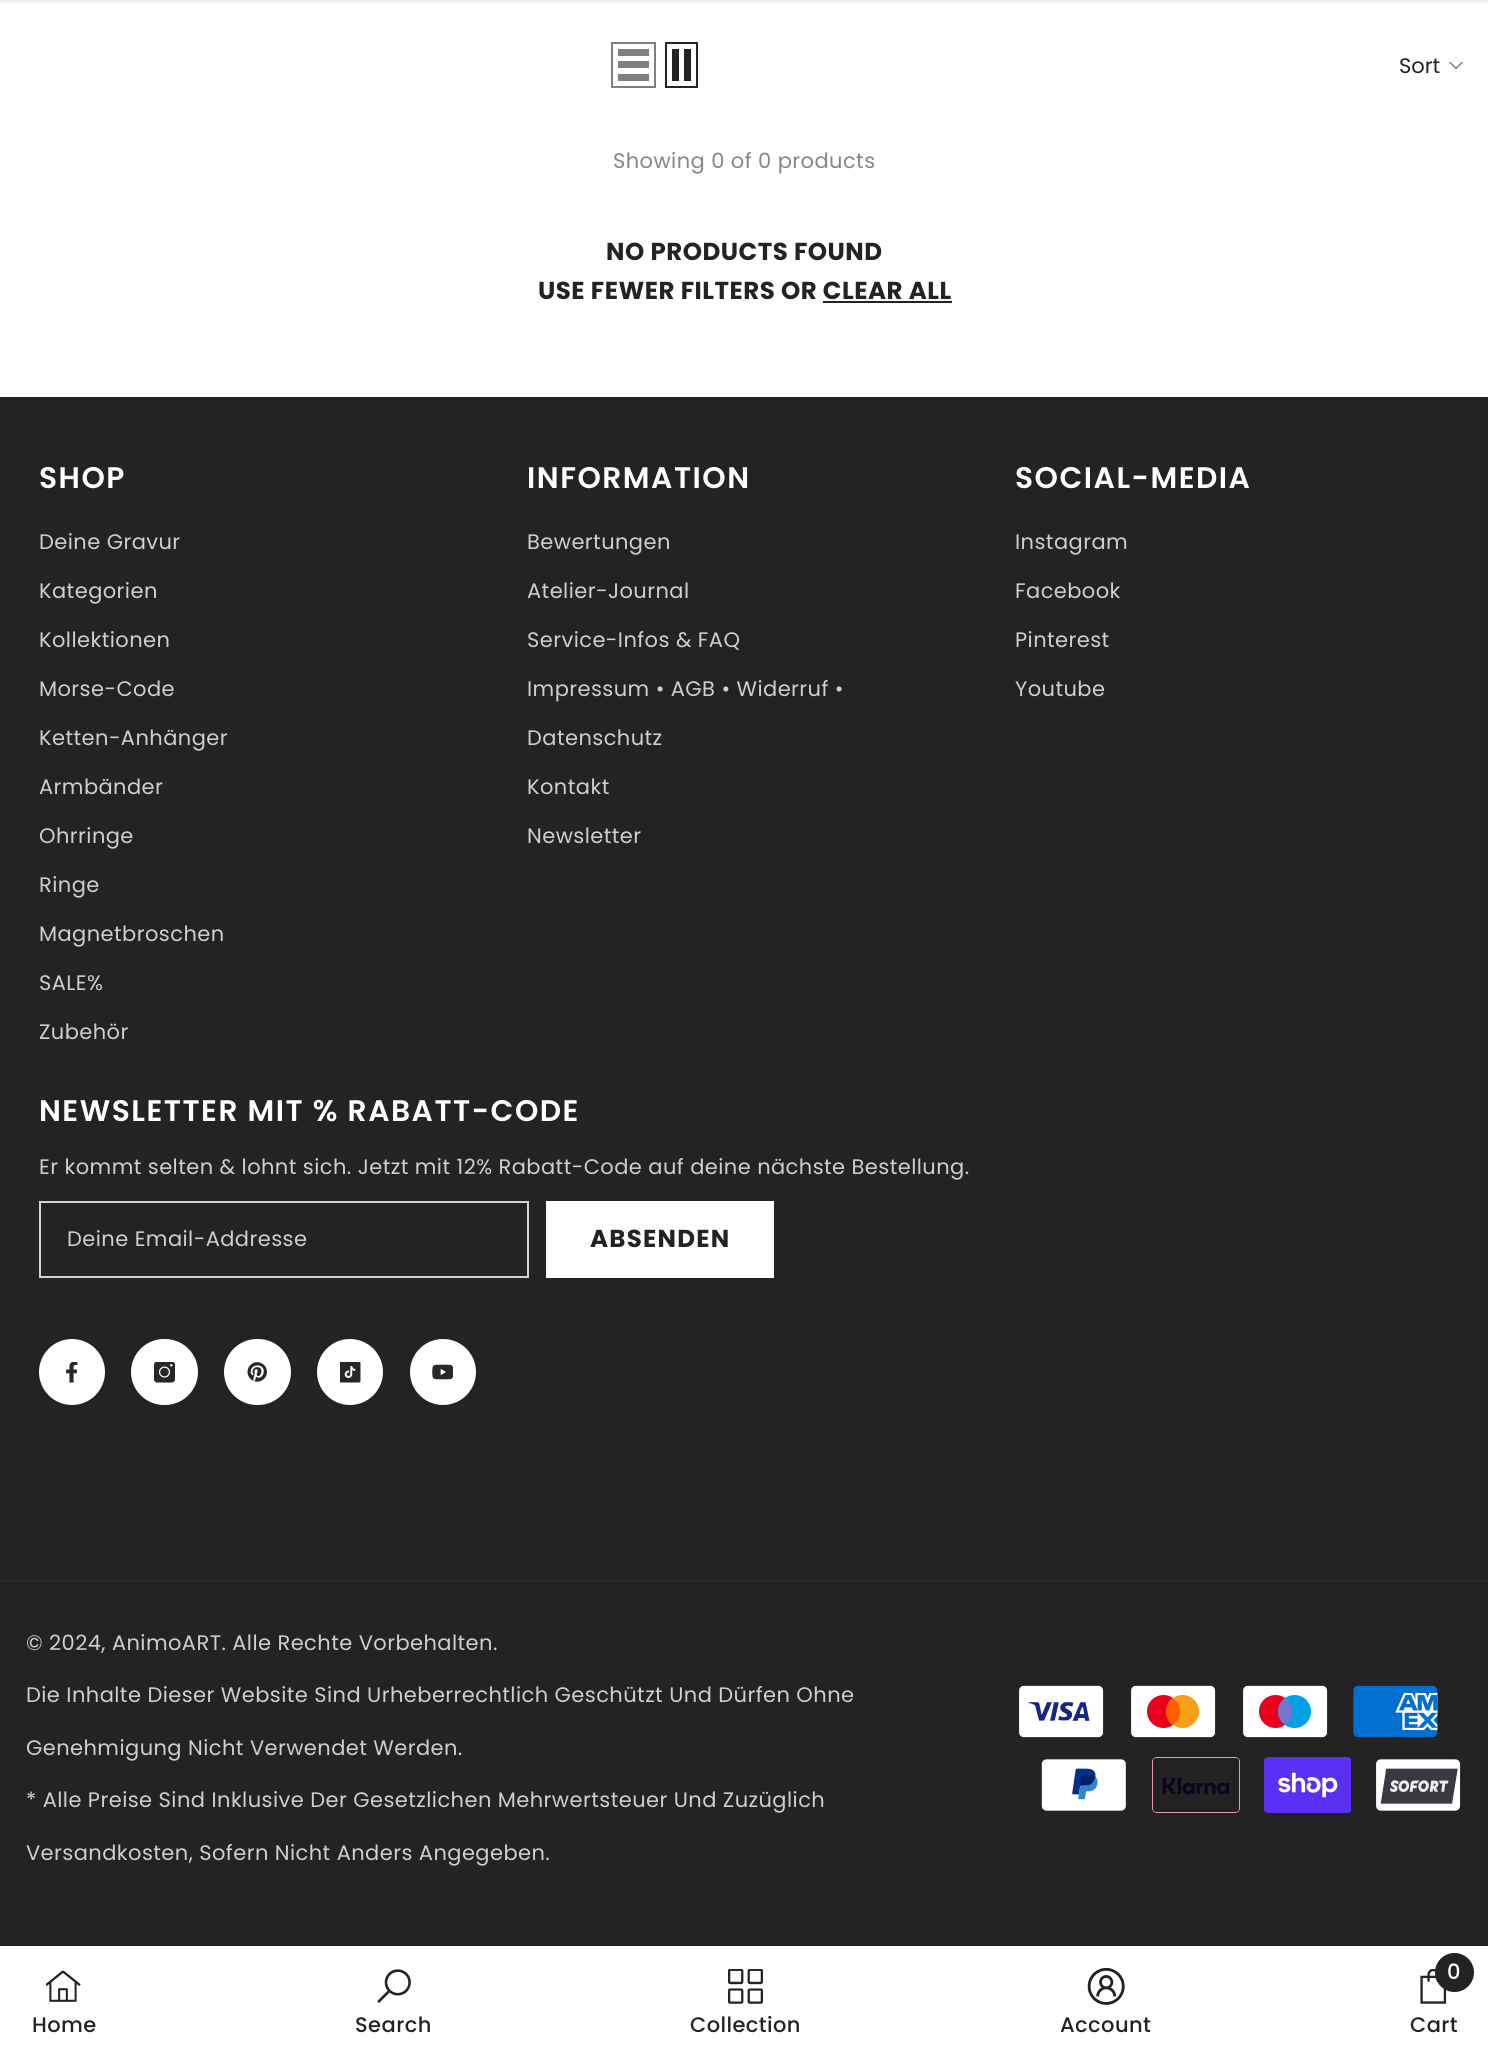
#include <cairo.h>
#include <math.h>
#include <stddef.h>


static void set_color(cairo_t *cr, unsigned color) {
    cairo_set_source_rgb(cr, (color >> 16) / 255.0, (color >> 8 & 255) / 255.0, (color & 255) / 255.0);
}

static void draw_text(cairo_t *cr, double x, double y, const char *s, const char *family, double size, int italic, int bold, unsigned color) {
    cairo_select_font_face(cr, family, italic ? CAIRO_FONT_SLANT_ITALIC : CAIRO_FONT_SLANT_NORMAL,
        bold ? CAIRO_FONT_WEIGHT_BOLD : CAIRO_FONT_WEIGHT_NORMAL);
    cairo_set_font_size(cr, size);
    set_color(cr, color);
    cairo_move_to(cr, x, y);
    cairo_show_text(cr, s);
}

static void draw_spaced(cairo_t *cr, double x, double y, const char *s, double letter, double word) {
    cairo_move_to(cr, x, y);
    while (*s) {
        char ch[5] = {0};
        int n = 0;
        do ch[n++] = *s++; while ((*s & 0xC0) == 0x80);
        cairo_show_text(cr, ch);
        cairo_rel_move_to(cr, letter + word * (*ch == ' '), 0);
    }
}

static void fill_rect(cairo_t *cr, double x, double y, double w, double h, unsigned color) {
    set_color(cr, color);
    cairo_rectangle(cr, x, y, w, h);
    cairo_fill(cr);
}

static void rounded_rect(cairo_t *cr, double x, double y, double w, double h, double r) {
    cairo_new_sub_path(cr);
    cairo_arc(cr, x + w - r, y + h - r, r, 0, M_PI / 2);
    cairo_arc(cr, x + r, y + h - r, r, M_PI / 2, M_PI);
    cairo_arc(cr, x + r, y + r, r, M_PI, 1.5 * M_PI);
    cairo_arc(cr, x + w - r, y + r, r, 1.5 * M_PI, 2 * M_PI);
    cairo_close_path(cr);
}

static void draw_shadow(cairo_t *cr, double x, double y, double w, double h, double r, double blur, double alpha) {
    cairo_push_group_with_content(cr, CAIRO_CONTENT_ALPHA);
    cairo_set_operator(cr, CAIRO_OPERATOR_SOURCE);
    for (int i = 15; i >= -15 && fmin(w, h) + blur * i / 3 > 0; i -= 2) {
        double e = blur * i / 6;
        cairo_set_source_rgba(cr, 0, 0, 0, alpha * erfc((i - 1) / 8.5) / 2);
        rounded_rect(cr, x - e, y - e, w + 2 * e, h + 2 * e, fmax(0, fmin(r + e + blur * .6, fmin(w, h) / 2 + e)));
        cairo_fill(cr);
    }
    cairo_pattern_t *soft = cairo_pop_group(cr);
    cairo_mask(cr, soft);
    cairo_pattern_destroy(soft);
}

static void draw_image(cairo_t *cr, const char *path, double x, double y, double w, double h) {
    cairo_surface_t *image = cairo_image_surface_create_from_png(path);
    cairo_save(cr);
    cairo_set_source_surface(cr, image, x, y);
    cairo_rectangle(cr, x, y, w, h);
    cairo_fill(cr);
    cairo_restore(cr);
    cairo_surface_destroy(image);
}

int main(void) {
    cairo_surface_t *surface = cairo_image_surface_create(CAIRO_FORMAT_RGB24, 1488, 2053);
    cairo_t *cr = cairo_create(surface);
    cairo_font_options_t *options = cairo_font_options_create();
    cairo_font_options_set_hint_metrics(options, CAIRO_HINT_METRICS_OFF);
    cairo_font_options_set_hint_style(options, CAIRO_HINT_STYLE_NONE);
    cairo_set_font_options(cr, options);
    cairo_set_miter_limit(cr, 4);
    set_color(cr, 0xFFFFFF);
    cairo_paint(cr);
    set_color(cr, 0x000000);
    draw_shadow(cr, 0, -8, 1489, 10, 0, 2.5, 0.1);
    cairo_rectangle(cr, 612, 43, 43, 44);
    set_color(cr, 0x808080);
    cairo_stroke(cr);
    fill_rect(cr, 618, 74, 31, 7, 0x808080);
    fill_rect(cr, 618, 61, 31, 7, 0x808080);
    fill_rect(cr, 618, 49, 31, 7, 0x808080);
    cairo_rectangle(cr, 666, 43, 31, 44);
    set_color(cr, 0x232323);
    cairo_stroke(cr);
    fill_rect(cr, 684, 49, 7, 32, 0x232323);
    fill_rect(cr, 672, 49, 7, 32, 0x232323);
    draw_text(cr, 1399, 73, "Sort", "Poppins", 21, 0, 0, 0x232323);
    draw_image(cr, "assets/img1.png", 1449, 62, 14, 7);
    set_color(cr, 0x868686);
    draw_spaced(cr, 613, 168, "Showing 0 of 0 products", 0.42, 0);
    cairo_select_font_face(cr, "Poppins", CAIRO_FONT_SLANT_NORMAL, CAIRO_FONT_WEIGHT_BOLD);
    cairo_set_font_size(cr, 24.5);
    set_color(cr, 0x232323);
    draw_spaced(cr, 606, 260, "NO PRODUCTS FOUND", 0.5, 0);
    draw_spaced(cr, 538, 299, "USE FEWER FILTERS OR CLEAR ALL", 0.5, 0);
    fill_rect(cr, 823, 301, 129, 2, 0x232323);
    fill_rect(cr, 0, 397, 1488, 1183, 0x232323);
    cairo_select_font_face(cr, "Poppins SemiBold", CAIRO_FONT_SLANT_NORMAL, CAIRO_FONT_WEIGHT_NORMAL);
    cairo_set_font_size(cr, 29.75);
    set_color(cr, 0xFFFFFF);
    draw_spaced(cr, 39, 488, "SHOP", 1.5, 0);
    cairo_select_font_face(cr, "Poppins", CAIRO_FONT_SLANT_NORMAL, CAIRO_FONT_WEIGHT_NORMAL);
    cairo_set_font_size(cr, 21);
    set_color(cr, 0xCFCFCF);
    draw_spaced(cr, 39, 549, "Deine Gravur", 0.42, 0);
    draw_spaced(cr, 39, 598, "Kategorien", 0.42, 0);
    draw_spaced(cr, 39, 647, "Kollektionen", 0.42, 0);
    draw_spaced(cr, 39, 696, "Morse-Code", 0.42, 0);
    draw_spaced(cr, 39, 745, "Ketten-Anhänger", 0.42, 0);
    draw_spaced(cr, 39, 794, "Armbänder", 0.42, 0);
    draw_spaced(cr, 39, 843, "Ohrringe", 0.42, 0);
    draw_spaced(cr, 39, 892, "Ringe", 0.42, 0);
    draw_spaced(cr, 39, 941, "Magnetbroschen", 0.42, 0);
    draw_spaced(cr, 39, 990, "SALE%", 0.42, 0);
    draw_spaced(cr, 39, 1039, "Zubehör", 0.42, 0);
    cairo_select_font_face(cr, "Poppins SemiBold", CAIRO_FONT_SLANT_NORMAL, CAIRO_FONT_WEIGHT_NORMAL);
    cairo_set_font_size(cr, 29.75);
    set_color(cr, 0xFFFFFF);
    draw_spaced(cr, 527, 488, "INFORMATION", 1.5, 0);
    cairo_select_font_face(cr, "Poppins", CAIRO_FONT_SLANT_NORMAL, CAIRO_FONT_WEIGHT_NORMAL);
    cairo_set_font_size(cr, 21);
    set_color(cr, 0xCFCFCF);
    draw_spaced(cr, 527, 549, "Bewertungen", 0.42, 0);
    draw_spaced(cr, 527, 598, "Atelier-Journal", 0.42, 0);
    draw_spaced(cr, 527, 647, "Service-Infos & FAQ", 0.42, 0);
    draw_spaced(cr, 527, 696, "Impressum • AGB • Widerruf •", 0.42, 0);
    draw_spaced(cr, 527, 745, "Datenschutz", 0.42, 0);
    draw_spaced(cr, 527, 794, "Kontakt", 0.42, 0);
    draw_spaced(cr, 527, 843, "Newsletter", 0.42, 0);
    cairo_select_font_face(cr, "Poppins SemiBold", CAIRO_FONT_SLANT_NORMAL, CAIRO_FONT_WEIGHT_NORMAL);
    cairo_set_font_size(cr, 29.75);
    set_color(cr, 0xFFFFFF);
    draw_spaced(cr, 1015, 488, "SOCIAL-MEDIA", 1.5, 0);
    cairo_select_font_face(cr, "Poppins", CAIRO_FONT_SLANT_NORMAL, CAIRO_FONT_WEIGHT_NORMAL);
    cairo_set_font_size(cr, 21);
    set_color(cr, 0xCFCFCF);
    draw_spaced(cr, 1015, 549, "Instagram", 0.42, 0);
    draw_spaced(cr, 1015, 598, "Facebook", 0.42, 0);
    draw_spaced(cr, 1015, 647, "Pinterest", 0.42, 0);
    draw_spaced(cr, 1015, 696, "Youtube", 0.42, 0);
    cairo_select_font_face(cr, "Poppins SemiBold", CAIRO_FONT_SLANT_NORMAL, CAIRO_FONT_WEIGHT_NORMAL);
    cairo_set_font_size(cr, 29.75);
    set_color(cr, 0xFFFFFF);
    draw_spaced(cr, 39, 1121, "NEWSLETTER MIT % RABATT-CODE", 1.5, 0);
    cairo_select_font_face(cr, "Poppins", CAIRO_FONT_SLANT_NORMAL, CAIRO_FONT_WEIGHT_NORMAL);
    cairo_set_font_size(cr, 21);
    set_color(cr, 0xCFCFCF);
    draw_spaced(cr, 39, 1174, "Er kommt selten & lohnt sich. Jetzt mit 12% Rabatt-Code auf deine nächste Bestellung.", 0.42, 0);
    cairo_rectangle(cr, 40, 1202, 488, 75);
    set_color(cr, 0xD3D3D3);
    cairo_stroke(cr);
    set_color(cr, 0xCFCFCF);
    draw_spaced(cr, 67, 1246, "Deine Email-Addresse", 0.42, 0);
    fill_rect(cr, 546, 1201, 228, 77, 0xFFFFFF);
    cairo_select_font_face(cr, "Poppins", CAIRO_FONT_SLANT_NORMAL, CAIRO_FONT_WEIGHT_BOLD);
    cairo_set_font_size(cr, 24.5);
    set_color(cr, 0x232323);
    draw_spaced(cr, 590, 1247, "ABSENDEN", 1.25, 0);
    set_color(cr, 0xFFFFFF);
    cairo_new_path(cr);
    cairo_arc(cr, 72, 1372, 32, 0, 2 * M_PI);
    cairo_fill_preserve(cr);
    cairo_stroke(cr);
    draw_image(cr, "assets/img2.png", 66, 1362, 12, 21);
    rounded_rect(cr, 132, 1340, 65, 64, 32);
    cairo_fill_preserve(cr);
    cairo_stroke(cr);
    draw_image(cr, "assets/img3.png", 154, 1362, 21, 21);
    rounded_rect(cr, 225, 1340, 65, 64, 32);
    cairo_fill_preserve(cr);
    cairo_stroke(cr);
    draw_image(cr, "assets/img4.png", 247, 1362, 20, 20);
    cairo_arc(cr, 350, 1372, 32, 0, 2 * M_PI);
    cairo_fill_preserve(cr);
    cairo_stroke(cr);
    draw_image(cr, "assets/img5.png", 340, 1362, 21, 21);
    cairo_arc(cr, 443, 1372, 32, 0, 2 * M_PI);
    cairo_fill_preserve(cr);
    cairo_stroke(cr);
    draw_image(cr, "assets/img6.png", 432, 1364, 21, 16);
    fill_rect(cr, 0, 1582, 1488, 364, 0x232323);
    fill_rect(cr, 0, 1580, 1488, 2, 0x282828);
    cairo_select_font_face(cr, "Poppins", CAIRO_FONT_SLANT_NORMAL, CAIRO_FONT_WEIGHT_NORMAL);
    cairo_set_font_size(cr, 21);
    set_color(cr, 0xCFCFCF);
    draw_spaced(cr, 26, 1650, "© 2024, AnimoART. Alle Rechte Vorbehalten.", 0.42, 0);
    draw_spaced(cr, 26, 1702, "Die Inhalte Dieser Website Sind Urheberrechtlich Geschützt Und Dürfen Ohne", 0.42, 0);
    draw_spaced(cr, 26, 1755, "Genehmigung Nicht Verwendet Werden.", 0.42, 0);
    draw_spaced(cr, 26, 1807, "* Alle Preise Sind Inklusive Der Gesetzlichen Mehrwertsteuer Und Zuzüglich", 0.42, 0);
    draw_spaced(cr, 26, 1860, "Versandkosten, Sofern Nicht Anders Angegeben.", 0.42, 0);
    draw_image(cr, "assets/img7.png", 1019, 1685, 85, 53);
    draw_image(cr, "assets/img8.png", 1131, 1685, 85, 53);
    draw_image(cr, "assets/img9.png", 1243, 1685, 85, 53);
    draw_image(cr, "assets/img10.png", 1353, 1685, 85, 53);
    draw_image(cr, "assets/img11.png", 1041, 1759, 85, 52);
    draw_image(cr, "assets/img12.png", 1152, 1757, 88, 56);
    draw_image(cr, "assets/img13.png", 1264, 1757, 87, 56);
    draw_image(cr, "assets/img14.png", 1376, 1759, 85, 52);
    set_color(cr, 0x000000);
    draw_shadow(cr, 0, 1946, 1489, 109, 0, 8, 0.12);
    fill_rect(cr, 0, 1946, 1488, 107, 0xFFFFFF);
    draw_image(cr, "assets/img15.png", 46, 1970, 35, 32);
    cairo_select_font_face(cr, "Poppins Medium", CAIRO_FONT_SLANT_NORMAL, CAIRO_FONT_WEIGHT_NORMAL);
    set_color(cr, 0x232323);
    draw_spaced(cr, 32, 2032, "Home", 0.42, 0);
    draw_image(cr, "assets/img16.png", 377, 1969, 34, 34);
    draw_spaced(cr, 355, 2032, "Search", 0.42, 0);
    draw_image(cr, "assets/img17.png", 728, 1969, 35, 35);
    draw_spaced(cr, 690, 2032, "Collection", 0.42, 0);
    draw_image(cr, "assets/img18.png", 1087, 1967, 38, 38);
    draw_spaced(cr, 1060, 2032, "Account", 0.42, 0);
    draw_image(cr, "assets/img19.png", 1420, 1969, 27, 35);
    cairo_arc(cr, 1454.5, 1972.5, 19.5, 0, 2 * M_PI);
    cairo_fill(cr);
    draw_text(cr, 1447, 1979, "0", "Poppins Medium", 21, 0, 0, 0xFFFFFF);
    set_color(cr, 0x232323);
    draw_spaced(cr, 1410, 2032, "Cart", 0.42, 0);
    cairo_surface_write_to_png(surface, "output.png");
    cairo_font_options_destroy(options);
    cairo_destroy(cr);
    cairo_surface_destroy(surface);
    return 0;
}
